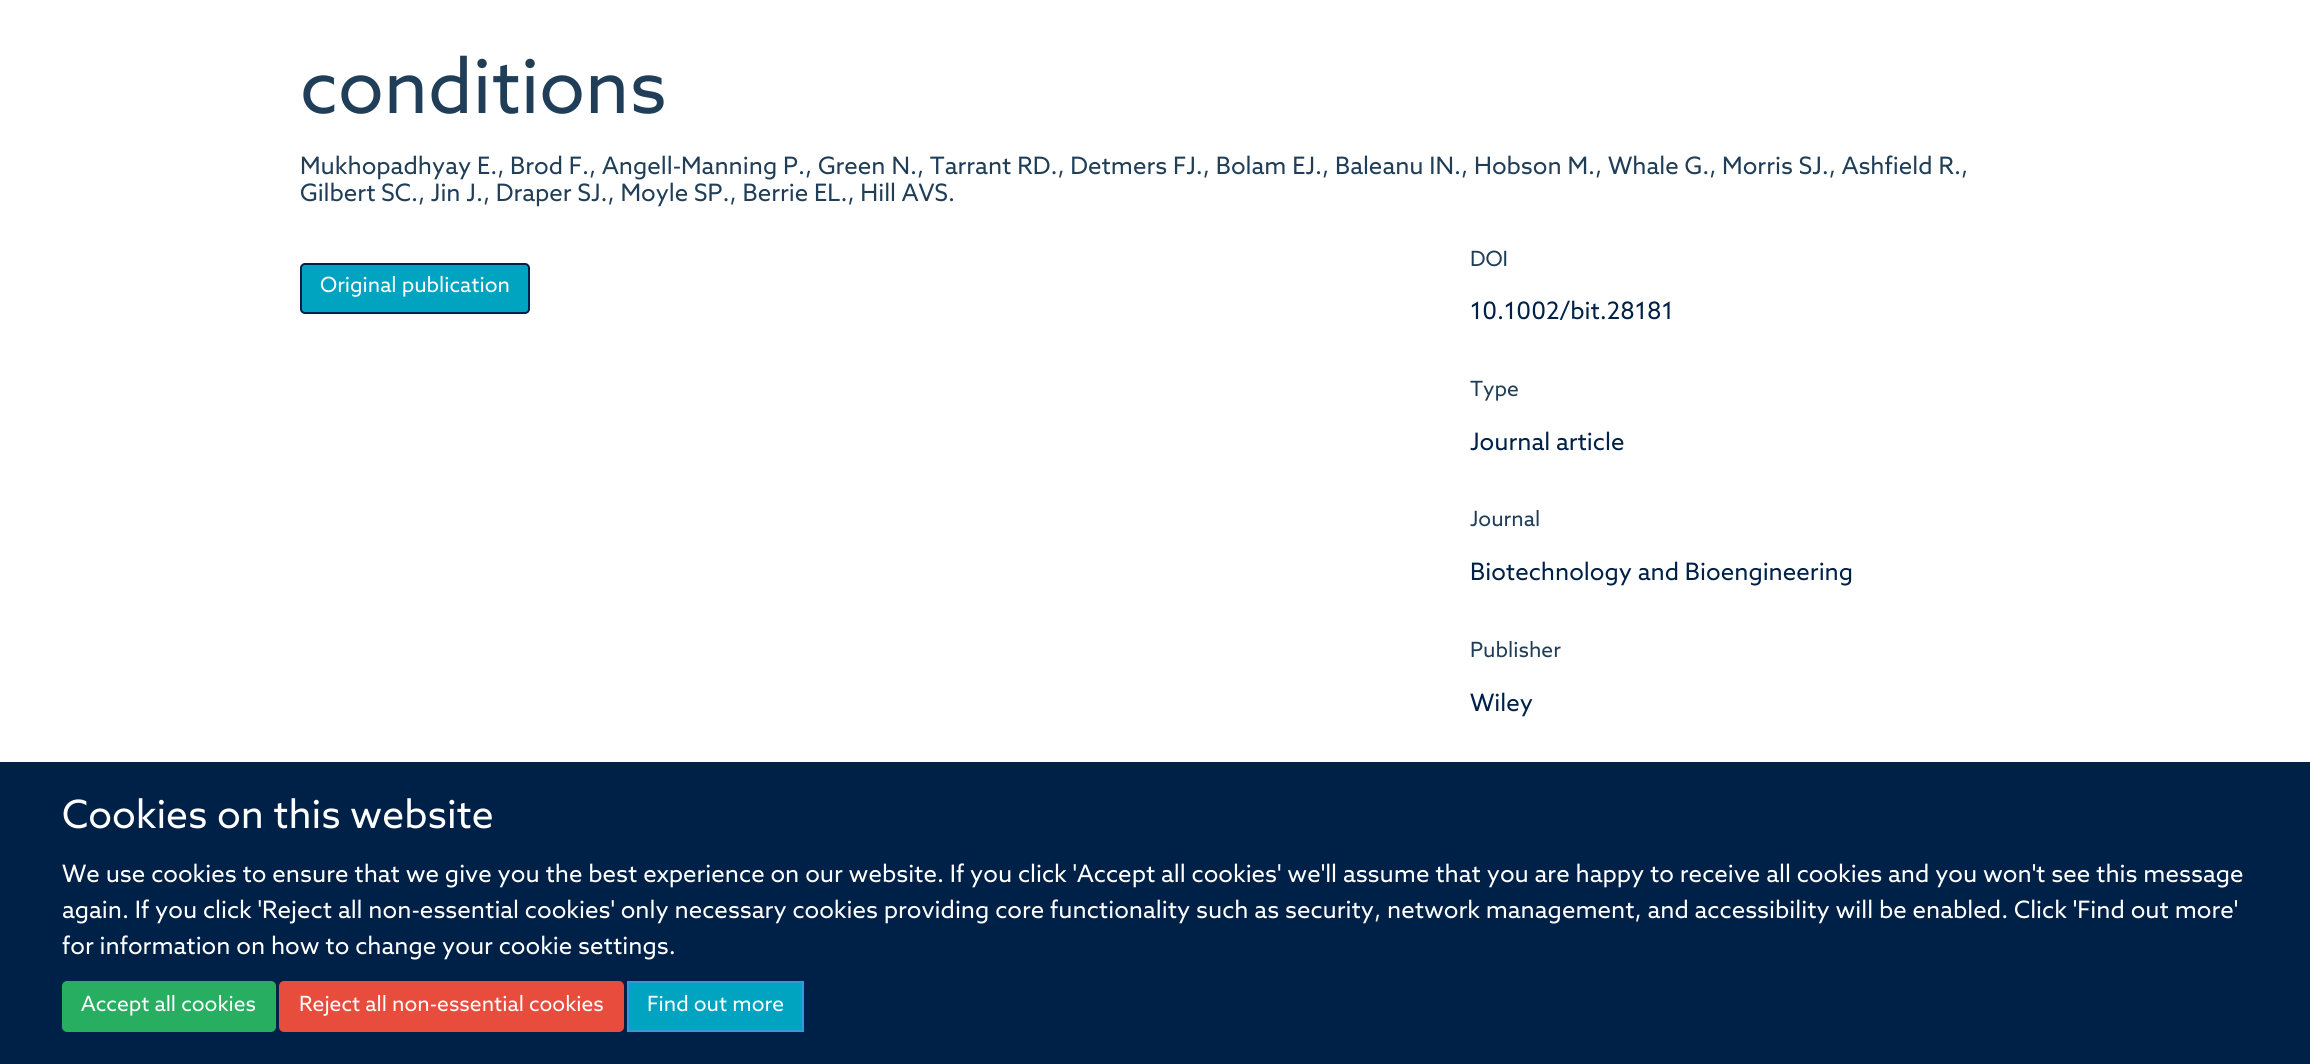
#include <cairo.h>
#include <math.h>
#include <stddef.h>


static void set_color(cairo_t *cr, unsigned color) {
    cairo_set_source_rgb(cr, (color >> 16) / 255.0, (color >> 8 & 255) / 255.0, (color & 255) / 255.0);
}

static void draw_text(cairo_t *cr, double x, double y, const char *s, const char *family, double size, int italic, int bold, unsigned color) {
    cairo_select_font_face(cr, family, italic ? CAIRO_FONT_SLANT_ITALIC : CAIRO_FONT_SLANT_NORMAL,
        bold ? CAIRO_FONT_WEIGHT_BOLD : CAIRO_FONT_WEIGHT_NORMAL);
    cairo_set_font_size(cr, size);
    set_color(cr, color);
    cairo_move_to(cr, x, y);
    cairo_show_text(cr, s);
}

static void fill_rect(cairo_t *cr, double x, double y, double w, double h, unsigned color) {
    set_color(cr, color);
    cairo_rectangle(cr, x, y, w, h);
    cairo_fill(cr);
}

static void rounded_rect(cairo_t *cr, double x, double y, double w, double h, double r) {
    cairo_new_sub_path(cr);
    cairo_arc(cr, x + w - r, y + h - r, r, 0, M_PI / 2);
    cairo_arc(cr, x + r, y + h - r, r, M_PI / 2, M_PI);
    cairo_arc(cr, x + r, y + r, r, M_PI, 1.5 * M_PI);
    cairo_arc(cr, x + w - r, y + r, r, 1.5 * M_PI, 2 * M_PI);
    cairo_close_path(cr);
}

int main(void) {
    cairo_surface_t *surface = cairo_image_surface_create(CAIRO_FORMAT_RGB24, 2310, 1064);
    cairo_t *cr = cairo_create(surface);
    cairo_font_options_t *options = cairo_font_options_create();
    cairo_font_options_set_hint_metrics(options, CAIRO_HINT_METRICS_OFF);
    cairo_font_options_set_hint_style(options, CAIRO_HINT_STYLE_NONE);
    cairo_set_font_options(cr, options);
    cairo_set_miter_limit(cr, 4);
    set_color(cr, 0xFFFFFF);
    cairo_paint(cr);
    draw_text(cr, 300, 113, "conditions", "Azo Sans", 75, 0, 0, 0x203E58);
    draw_text(cr, 300, 174, "Mukhopadhyay E., Brod F., Angell", "Azo Sans", 24, 0, 0, 0x203E58);
    draw_text(cr, 673, 174, "‐", "Liberation Sans", 24, 0, 0, 0x203E58);
    draw_text(cr, 681, 174, "Manning P., Green N., Tarrant RD., Detmers FJ., Bolam EJ., Baleanu IN., Hobson M., Whale G., Morris SJ., Ashfield R.,", "Azo Sans", 24, 0, 0, 0x203E58);
    draw_text(cr, 300, 201, "Gilbert SC., Jin J., Draper SJ., Moyle SP., Berrie EL., Hill AVS.", "Azo Sans", 24, 0, 0, 0x203E58);
    set_color(cr, 0x00A3C0);
    rounded_rect(cr, 301, 264, 228, 49, 4);
    cairo_fill_preserve(cr);
    set_color(cr, 0x002147);
    cairo_stroke(cr);
    draw_text(cr, 320, 292, "Original publication", "Azo Sans", 21, 0, 0, 0xFFFFFF);
    draw_text(cr, 1470, 266, "DOI", "Azo Sans", 21, 0, 0, 0x203E58);
    draw_text(cr, 1470, 319, "10.1002/bit.28181", "Azo Sans", 24, 0, 0, 0x002147);
    draw_text(cr, 1470, 396, "Type", "Azo Sans", 21, 0, 0, 0x203E58);
    draw_text(cr, 1470, 450, "Journal article", "Azo Sans", 24, 0, 0, 0x002147);
    draw_text(cr, 1470, 526, "Journal", "Azo Sans", 21, 0, 0, 0x203E58);
    draw_text(cr, 1470, 580, "Biotechnology and Bioengineering", "Azo Sans", 24, 0, 0, 0x002147);
    draw_text(cr, 1470, 657, "Publisher", "Azo Sans", 21, 0, 0, 0x203E58);
    draw_text(cr, 1470, 711, "Wiley", "Azo Sans", 24, 0, 0, 0x002147);
    fill_rect(cr, 0, 762, 2310, 302, 0x002147);
    draw_text(cr, 62, 828, "Cookies on this website", "Azo Sans", 39, 0, 0, 0xFFFFFF);
    draw_text(cr, 62, 882, "We use cookies to ensure that we give you the best experience on our website. If you click 'Accept all cookies' we'll assume that you are happy to receive all cookies and you won't see this message", "Azo Sans", 24, 0, 0, 0xFFFFFF);
    draw_text(cr, 62, 918, "again. If you click 'Reject all non-essential cookies' only necessary cookies providing core functionality such as security, network management, and accessibility will be enabled. Click 'Find out more'", "Azo Sans", 24, 0, 0, 0xFFFFFF);
    draw_text(cr, 62, 954, "for information on how to change your cookie settings.", "Azo Sans", 24, 0, 0, 0xFFFFFF);
    set_color(cr, 0x27AE60);
    rounded_rect(cr, 63, 982, 212, 49, 4);
    cairo_fill_preserve(cr);
    cairo_stroke(cr);
    draw_text(cr, 81, 1011, "Accept all cookies", "Azo Sans", 21, 0, 0, 0xFFFFFF);
    set_color(cr, 0xE74C3C);
    rounded_rect(cr, 280, 982, 343, 49, 4);
    cairo_fill_preserve(cr);
    cairo_stroke(cr);
    draw_text(cr, 299, 1011, "Reject all non-essential cookies", "Azo Sans", 21, 0, 0, 0xFFFFFF);
    set_color(cr, 0x00A3C0);
    cairo_rectangle(cr, 628, 982, 175, 49);
    cairo_fill_preserve(cr);
    set_color(cr, 0x3498DB);
    cairo_stroke(cr);
    draw_text(cr, 647, 1011, "Find out more", "Azo Sans", 21, 0, 0, 0xFFFFFF);
    cairo_surface_write_to_png(surface, "output.png");
    cairo_font_options_destroy(options);
    cairo_destroy(cr);
    cairo_surface_destroy(surface);
    return 0;
}
